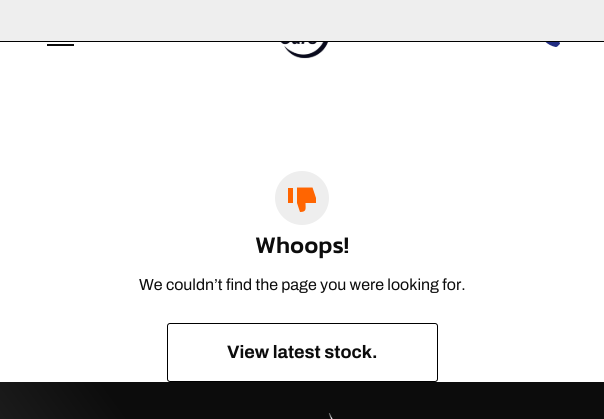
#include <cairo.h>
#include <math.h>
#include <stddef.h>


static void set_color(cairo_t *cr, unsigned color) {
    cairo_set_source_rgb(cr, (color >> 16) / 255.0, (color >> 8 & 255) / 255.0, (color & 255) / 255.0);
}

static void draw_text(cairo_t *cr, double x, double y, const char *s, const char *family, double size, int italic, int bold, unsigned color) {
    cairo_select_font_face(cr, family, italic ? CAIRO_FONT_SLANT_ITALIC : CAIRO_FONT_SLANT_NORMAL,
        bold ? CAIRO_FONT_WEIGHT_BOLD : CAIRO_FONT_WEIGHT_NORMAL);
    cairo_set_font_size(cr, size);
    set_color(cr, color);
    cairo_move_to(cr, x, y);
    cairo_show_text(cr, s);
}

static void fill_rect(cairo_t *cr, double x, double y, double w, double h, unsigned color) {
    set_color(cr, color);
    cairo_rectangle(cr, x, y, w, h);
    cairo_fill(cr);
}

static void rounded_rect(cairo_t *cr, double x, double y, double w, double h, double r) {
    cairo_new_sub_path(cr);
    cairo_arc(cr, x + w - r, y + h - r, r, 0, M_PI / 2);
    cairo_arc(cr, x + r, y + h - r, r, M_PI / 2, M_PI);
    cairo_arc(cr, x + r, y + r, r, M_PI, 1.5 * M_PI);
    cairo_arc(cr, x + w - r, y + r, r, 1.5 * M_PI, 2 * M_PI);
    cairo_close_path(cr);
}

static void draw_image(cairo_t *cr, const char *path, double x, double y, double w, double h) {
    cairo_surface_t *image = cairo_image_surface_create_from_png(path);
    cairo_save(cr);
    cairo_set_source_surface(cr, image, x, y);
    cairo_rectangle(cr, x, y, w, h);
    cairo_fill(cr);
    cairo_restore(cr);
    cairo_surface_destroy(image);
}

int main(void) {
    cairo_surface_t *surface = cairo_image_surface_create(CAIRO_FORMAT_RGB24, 604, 419);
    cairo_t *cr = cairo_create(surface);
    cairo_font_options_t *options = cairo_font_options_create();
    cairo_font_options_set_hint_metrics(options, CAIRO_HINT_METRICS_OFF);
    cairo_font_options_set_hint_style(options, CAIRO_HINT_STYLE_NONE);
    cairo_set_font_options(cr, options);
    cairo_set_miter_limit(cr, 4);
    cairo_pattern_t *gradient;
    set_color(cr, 0xFFFFFF);
    cairo_paint(cr);
    fill_rect(cr, 0, 0, 604, 41, 0xEEEEEE);
    fill_rect(cr, 0, 41, 604, 1, 0x000000);
    fill_rect(cr, 47, 44, 27, 2, 0x0C0C0C);
    draw_image(cr, "assets/img1.png", 280, 42, 49, 17);
    draw_image(cr, "assets/img2.png", 545, 42, 15, 5);
    set_color(cr, 0xEEEEEE);
    cairo_arc(cr, 302, 198, 27, 0, 2 * M_PI);
    cairo_fill(cr);
    set_color(cr, 0xFF6501);
    cairo_new_path(cr);
    cairo_move_to(cr, 300, 212);
    cairo_line_to(cr, 297, 203);
    cairo_line_to(cr, 297, 187.5);
    cairo_line_to(cr, 312.5, 187.5);
    cairo_line_to(cr, 316, 198);
    cairo_line_to(cr, 316, 203);
    cairo_line_to(cr, 305.5, 203);
    cairo_curve_to(cr, 305.5, 208.5, 307, 212, 300, 212);
    cairo_close_path(cr);
    cairo_fill(cr);
    fill_rect(cr, 288, 188, 5, 15, 0xFF6501);
    draw_text(cr, 255, 253, "Whoops!", "Kanit Medium", 24, 0, 0, 0x0C0C0C);
    draw_text(cr, 139, 290, "We couldn’t find the page you were looking for.", "Archivo", 16, 0, 0, 0x0C0C0C);
    rounded_rect(cr, 167.5, 323.5, 270, 58, 2.5);
    set_color(cr, 0x000000);
    cairo_set_line_width(cr, 1);
    cairo_stroke(cr);
    draw_text(cr, 227, 358, "View latest stock.", "Archivo", 18, 0, 1, 0x0C0C0C);
    gradient = cairo_pattern_create_linear(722, 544, -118, 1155);
    cairo_pattern_add_color_stop_rgba(gradient, 0.39, 0.047, 0.047, 0.047, 1);
    cairo_pattern_add_color_stop_rgba(gradient, 0.57, 0.153, 0.153, 0.153, 1);
    cairo_pattern_add_color_stop_rgba(gradient, 0.72, 0.047, 0.047, 0.047, 1);
    cairo_set_source(cr, gradient);
    cairo_pattern_destroy(gradient);
    cairo_rectangle(cr, 0, 382, 604, 37);
    cairo_fill(cr);
    draw_image(cr, "assets/img3.png", 328, 413, 5, 6);
    cairo_surface_write_to_png(surface, "output.png");
    cairo_font_options_destroy(options);
    cairo_destroy(cr);
    cairo_surface_destroy(surface);
    return 0;
}
